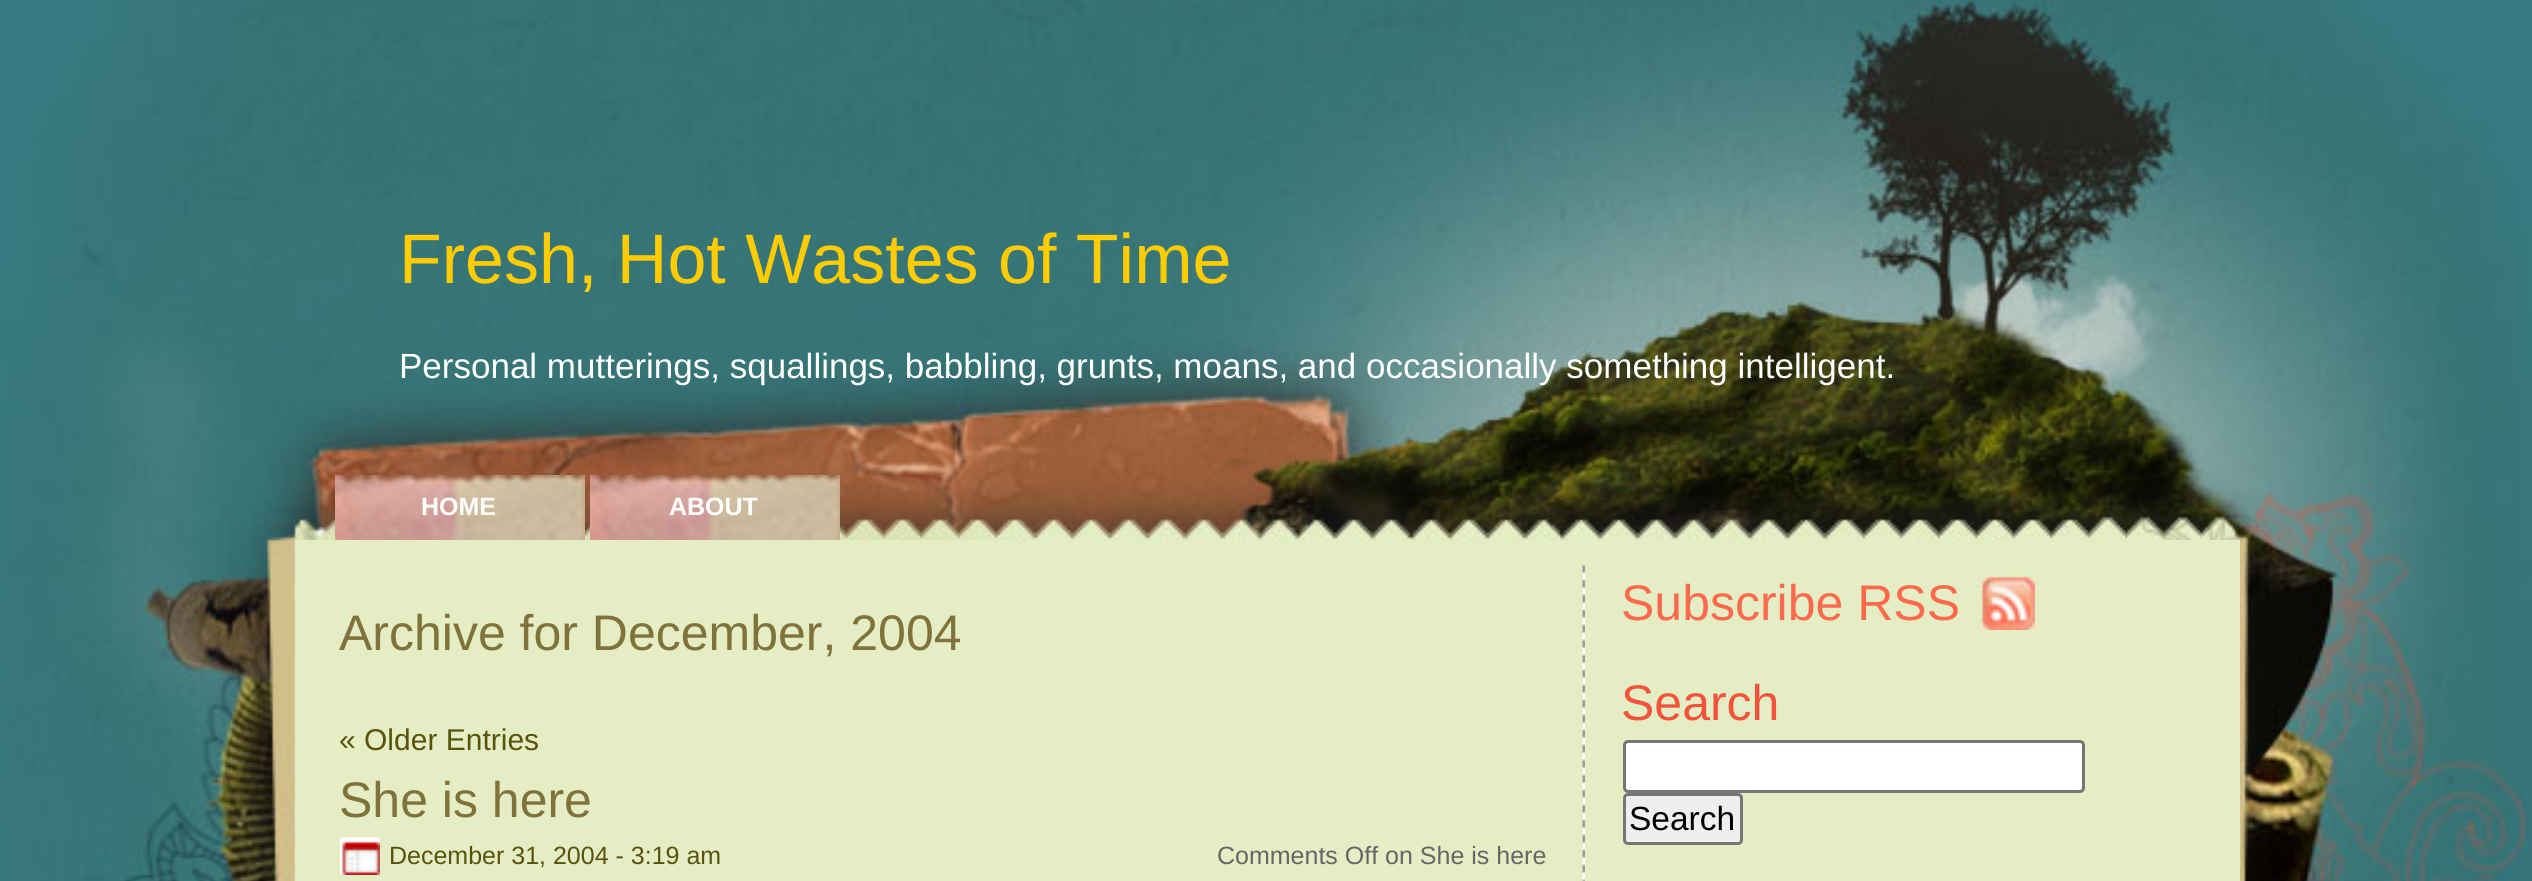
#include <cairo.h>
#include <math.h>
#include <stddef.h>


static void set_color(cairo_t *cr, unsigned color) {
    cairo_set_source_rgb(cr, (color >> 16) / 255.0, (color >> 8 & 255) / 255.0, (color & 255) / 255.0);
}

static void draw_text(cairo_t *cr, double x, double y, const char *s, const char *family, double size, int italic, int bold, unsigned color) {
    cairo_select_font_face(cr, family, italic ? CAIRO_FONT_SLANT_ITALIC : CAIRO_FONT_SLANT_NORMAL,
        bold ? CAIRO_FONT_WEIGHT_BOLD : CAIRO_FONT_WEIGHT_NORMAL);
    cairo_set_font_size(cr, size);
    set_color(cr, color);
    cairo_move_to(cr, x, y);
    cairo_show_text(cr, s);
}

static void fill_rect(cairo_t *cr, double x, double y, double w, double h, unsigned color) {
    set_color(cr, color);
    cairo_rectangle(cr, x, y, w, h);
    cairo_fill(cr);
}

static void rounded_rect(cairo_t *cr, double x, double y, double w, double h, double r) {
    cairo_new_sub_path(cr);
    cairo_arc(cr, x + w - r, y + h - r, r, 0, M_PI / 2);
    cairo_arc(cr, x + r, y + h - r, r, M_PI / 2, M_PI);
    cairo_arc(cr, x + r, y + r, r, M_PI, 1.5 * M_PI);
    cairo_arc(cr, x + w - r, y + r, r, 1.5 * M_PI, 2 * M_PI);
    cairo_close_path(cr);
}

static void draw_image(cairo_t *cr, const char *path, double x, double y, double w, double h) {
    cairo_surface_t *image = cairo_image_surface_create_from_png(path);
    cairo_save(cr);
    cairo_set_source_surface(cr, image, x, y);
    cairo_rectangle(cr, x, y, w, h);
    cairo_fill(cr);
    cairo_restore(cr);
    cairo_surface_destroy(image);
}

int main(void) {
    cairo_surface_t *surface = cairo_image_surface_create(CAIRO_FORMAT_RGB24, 2532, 881);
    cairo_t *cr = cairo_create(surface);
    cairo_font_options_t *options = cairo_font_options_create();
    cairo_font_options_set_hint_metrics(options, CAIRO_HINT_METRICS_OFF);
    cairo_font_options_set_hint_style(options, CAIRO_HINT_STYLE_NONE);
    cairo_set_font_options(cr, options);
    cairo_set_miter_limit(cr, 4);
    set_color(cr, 0xFFFFFF);
    cairo_paint(cr);
    draw_image(cr, "assets/img1.png", 0, 0, 2532, 881);
    draw_text(cr, 399, 283, "Fresh, Hot Wastes of Time", "Liberation Sans", 70, 0, 0, 0xFFCC00);
    draw_text(cr, 399, 378, "Personal mutterings, squallings, babbling, grunts, moans, and occasionally something intelligent.", "Liberation Sans", 35, 0, 0, 0xFFFFFF);
    draw_image(cr, "assets/img2.png", 335, 475, 250, 65);
    draw_text(cr, 421, 515, "HOME", "Liberation Sans", 25, 0, 1, 0xFFFFFF);
    draw_image(cr, "assets/img2.png", 590, 475, 250, 65);
    draw_text(cr, 669, 515, "ABOUT", "Liberation Sans", 25, 0, 1, 0xFFFFFF);
    fill_rect(cr, 295, 540, 1945, 341, 0xE4EDC3);
    draw_image(cr, "assets/img3.png", 1582, 565, 3, 316);
    draw_text(cr, 339, 650, "Archive for December, 2004", "Liberation Sans", 50, 0, 0, 0x80723B);
    draw_text(cr, 339, 750, "« Older Entries", "Liberation Sans", 30, 0, 0, 0x58540E);
    draw_text(cr, 339, 817, "She is here", "Liberation Sans", 50, 0, 0, 0x80723B);
    draw_image(cr, "assets/img4.png", 340, 837, 40, 38);
    draw_text(cr, 389, 864, "December 31, 2004 - 3:19 am", "Liberation Sans", 25, 0, 0, 0x58540E);
    draw_text(cr, 1217, 864, "Comments Off on She is here", "Liberation Sans", 25, 0, 0, 0x666666);
    draw_text(cr, 1621, 620, "Subscribe RSS", "Liberation Sans", 50, 0, 0, 0xFD694D);
    draw_image(cr, "assets/img5.png", 1977, 575, 58, 55);
    draw_text(cr, 1621, 720, "Search", "Liberation Sans", 50, 0, 0, 0xF3523B);
    set_color(cr, 0xFFFFFF);
    rounded_rect(cr, 1624.5, 741.5, 459, 50, 3.5);
    cairo_fill_preserve(cr);
    set_color(cr, 0x767676);
    cairo_set_line_width(cr, 3);
    cairo_stroke(cr);
    set_color(cr, 0xEFEFEF);
    rounded_rect(cr, 1624.5, 794.5, 117, 49, 3.5);
    cairo_fill_preserve(cr);
    set_color(cr, 0x767676);
    cairo_stroke(cr);
    draw_text(cr, 1629, 830, "Search", "Liberation Sans", 33.5, 0, 0, 0x000000);
    cairo_surface_write_to_png(surface, "output.png");
    cairo_font_options_destroy(options);
    cairo_destroy(cr);
    cairo_surface_destroy(surface);
    return 0;
}
